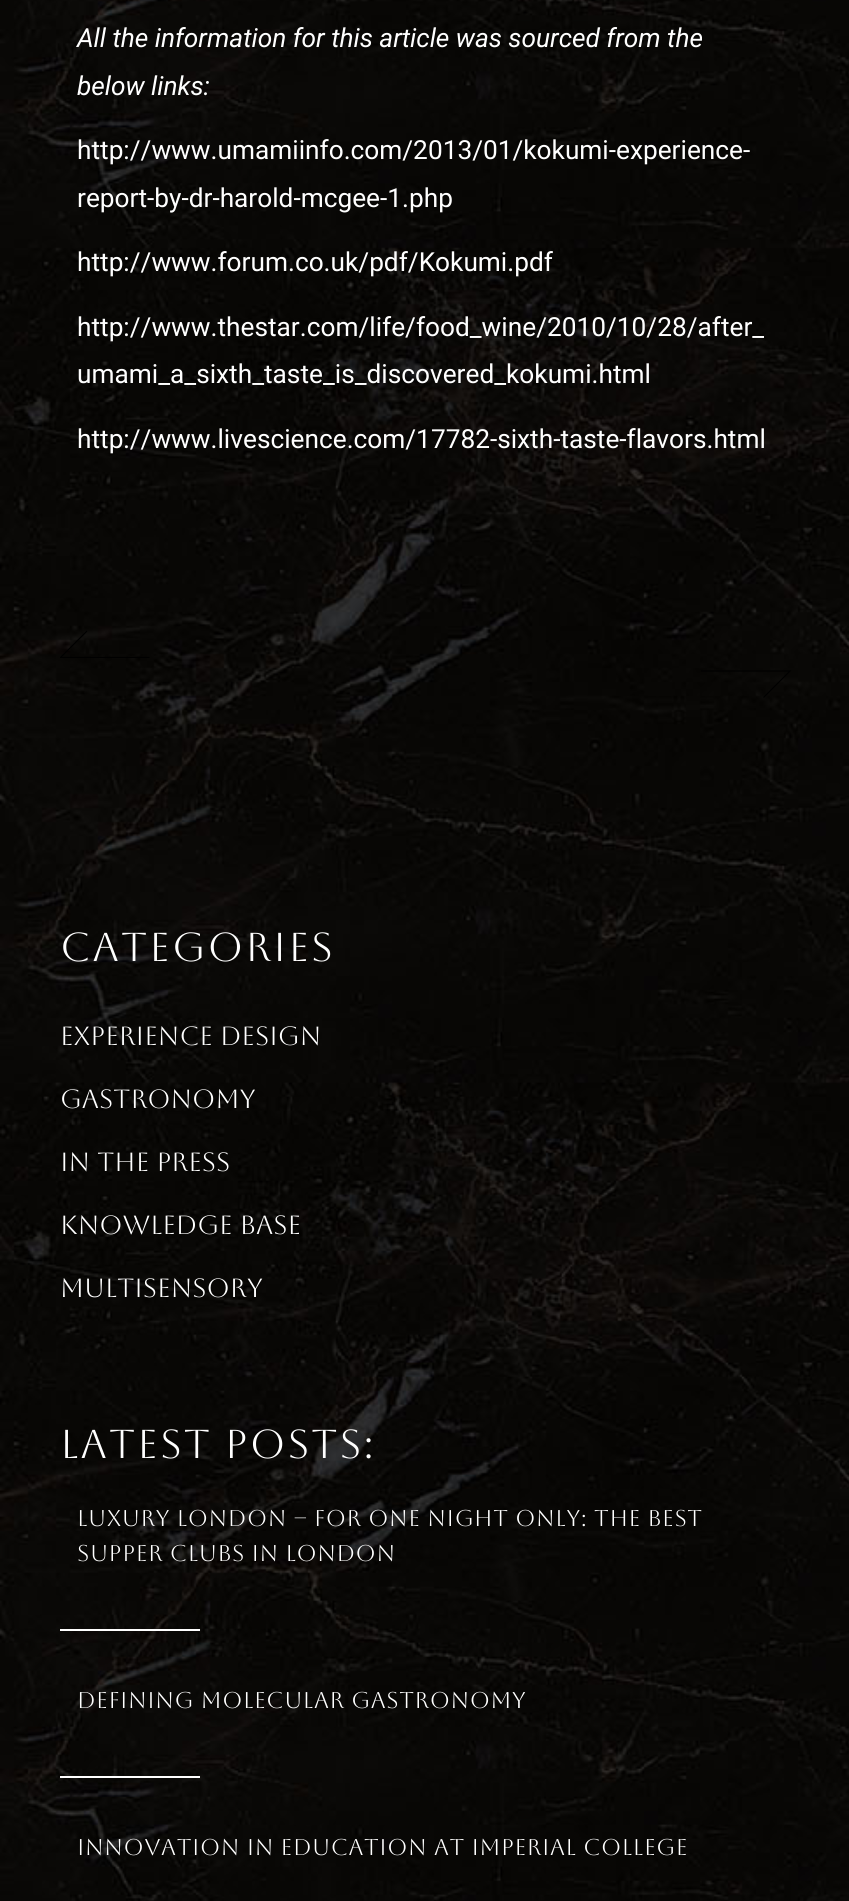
#include <cairo.h>
#include <math.h>
#include <stddef.h>


static void set_color(cairo_t *cr, unsigned color) {
    cairo_set_source_rgb(cr, (color >> 16) / 255.0, (color >> 8 & 255) / 255.0, (color & 255) / 255.0);
}

static void draw_text(cairo_t *cr, double x, double y, const char *s, const char *family, double size, int italic, int bold, unsigned color) {
    cairo_select_font_face(cr, family, italic ? CAIRO_FONT_SLANT_ITALIC : CAIRO_FONT_SLANT_NORMAL,
        bold ? CAIRO_FONT_WEIGHT_BOLD : CAIRO_FONT_WEIGHT_NORMAL);
    cairo_set_font_size(cr, size);
    set_color(cr, color);
    cairo_move_to(cr, x, y);
    cairo_show_text(cr, s);
}

static void draw_spaced(cairo_t *cr, double x, double y, const char *s, double letter, double word) {
    cairo_move_to(cr, x, y);
    while (*s) {
        char ch[5] = {0};
        int n = 0;
        do ch[n++] = *s++; while ((*s & 0xC0) == 0x80);
        cairo_show_text(cr, ch);
        cairo_rel_move_to(cr, letter + word * (*ch == ' '), 0);
    }
}

static void fill_rect(cairo_t *cr, double x, double y, double w, double h, unsigned color) {
    set_color(cr, color);
    cairo_rectangle(cr, x, y, w, h);
    cairo_fill(cr);
}

static void draw_image(cairo_t *cr, const char *path, double x, double y, double w, double h) {
    cairo_surface_t *image = cairo_image_surface_create_from_png(path);
    cairo_save(cr);
    cairo_set_source_surface(cr, image, x, y);
    cairo_rectangle(cr, x, y, w, h);
    cairo_fill(cr);
    cairo_restore(cr);
    cairo_surface_destroy(image);
}

int main(void) {
    cairo_surface_t *surface = cairo_image_surface_create(CAIRO_FORMAT_RGB24, 849, 1901);
    cairo_t *cr = cairo_create(surface);
    cairo_font_options_t *options = cairo_font_options_create();
    cairo_font_options_set_hint_metrics(options, CAIRO_HINT_METRICS_OFF);
    cairo_font_options_set_hint_style(options, CAIRO_HINT_STYLE_NONE);
    cairo_set_font_options(cr, options);
    cairo_set_miter_limit(cr, 4);
    set_color(cr, 0xFFFFFF);
    cairo_paint(cr);
    draw_image(cr, "assets/img1.png", 0, 0, 849, 1901);
    draw_text(cr, 77, 47, "All the information for this article was sourced from the", "Roboto", 26.25, 1, 0, 0xFFFFFF);
    draw_text(cr, 77, 95, "below links:", "Roboto", 26.25, 1, 0, 0xFFFFFF);
    draw_text(cr, 77, 159, "http://www.umamiinfo.com/2013/01/kokumi-experience-", "Roboto", 26.25, 0, 0, 0xFFFFFF);
    draw_text(cr, 77, 207, "report-by-dr-harold-mcgee-1.php", "Roboto", 26.25, 0, 0, 0xFFFFFF);
    draw_text(cr, 77, 271, "http://www.forum.co.uk/pdf/Kokumi.pdf", "Roboto", 26.25, 0, 0, 0xFFFFFF);
    draw_text(cr, 77, 336, "http://www.thestar.com/life/food_wine/2010/10/28/after_", "Roboto", 26.25, 0, 0, 0xFFFFFF);
    draw_text(cr, 77, 383, "umami_a_sixth_taste_is_discovered_kokumi.html", "Roboto", 26.25, 0, 0, 0xFFFFFF);
    draw_text(cr, 77, 448, "http://www.livescience.com/17782-sixth-taste-flavors.html", "Roboto", 26.25, 0, 0, 0xFFFFFF);
    cairo_save(cr);
    cairo_rectangle(cr, 60, 630, 91, 28);
    cairo_clip(cr);
    cairo_new_path(cr);
    cairo_move_to(cr, 87, 631);
    cairo_line_to(cr, 60.5, 657.5);
    cairo_line_to(cr, 149.5, 657.5);
    set_color(cr, 0x000000);
    cairo_set_line_width(cr, 1.2);
    cairo_stroke(cr);
    cairo_restore(cr);
    cairo_new_path(cr);
    cairo_move_to(cr, 763.5, 697.5);
    cairo_line_to(cr, 790, 671);
    cairo_line_to(cr, 701, 671);
    set_color(cr, 0x000000);
    cairo_set_line_width(cr, 1.2);
    cairo_stroke(cr);
    cairo_select_font_face(cr, "Aboreto", CAIRO_FONT_SLANT_NORMAL, CAIRO_FONT_WEIGHT_NORMAL);
    cairo_set_font_size(cr, 40.25);
    set_color(cr, 0xFFFFFF);
    draw_spaced(cr, 60, 961, "CATEGORIES", 2, 0);
    draw_text(cr, 60, 1045, "Experience Design", "Aboreto", 26.25, 0, 0, 0xFFFFFF);
    draw_text(cr, 60, 1108, "Gastronomy", "Aboreto", 26.25, 0, 0, 0xFFFFFF);
    draw_text(cr, 60, 1171, "In the Press", "Aboreto", 26.25, 0, 0, 0xFFFFFF);
    draw_text(cr, 60, 1234, "Knowledge Base", "Aboreto", 26.25, 0, 0, 0xFFFFFF);
    draw_text(cr, 60, 1297, "Multisensory", "Aboreto", 26.25, 0, 0, 0xFFFFFF);
    cairo_set_font_size(cr, 40.25);
    draw_spaced(cr, 60, 1458, "LATEST POSTS:", 2, 0);
    cairo_set_font_size(cr, 22.75);
    draw_spaced(cr, 77, 1526, "LUXURY LONDON – FOR ONE NIGHT ONLY: THE BEST", 0.55, 0);
    draw_spaced(cr, 77, 1561, "SUPPER CLUBS IN LONDON", 0.55, 0);
    fill_rect(cr, 60, 1629, 140, 2, 0xFFFFFF);
    draw_spaced(cr, 77, 1708, "DEFINING MOLECULAR GASTRONOMY", 0.55, 0);
    fill_rect(cr, 60, 1776, 140, 2, 0xFFFFFF);
    draw_spaced(cr, 77, 1855, "INNOVATION IN EDUCATION AT IMPERIAL COLLEGE", 0.55, 0);
    cairo_surface_write_to_png(surface, "output.png");
    cairo_font_options_destroy(options);
    cairo_destroy(cr);
    cairo_surface_destroy(surface);
    return 0;
}
